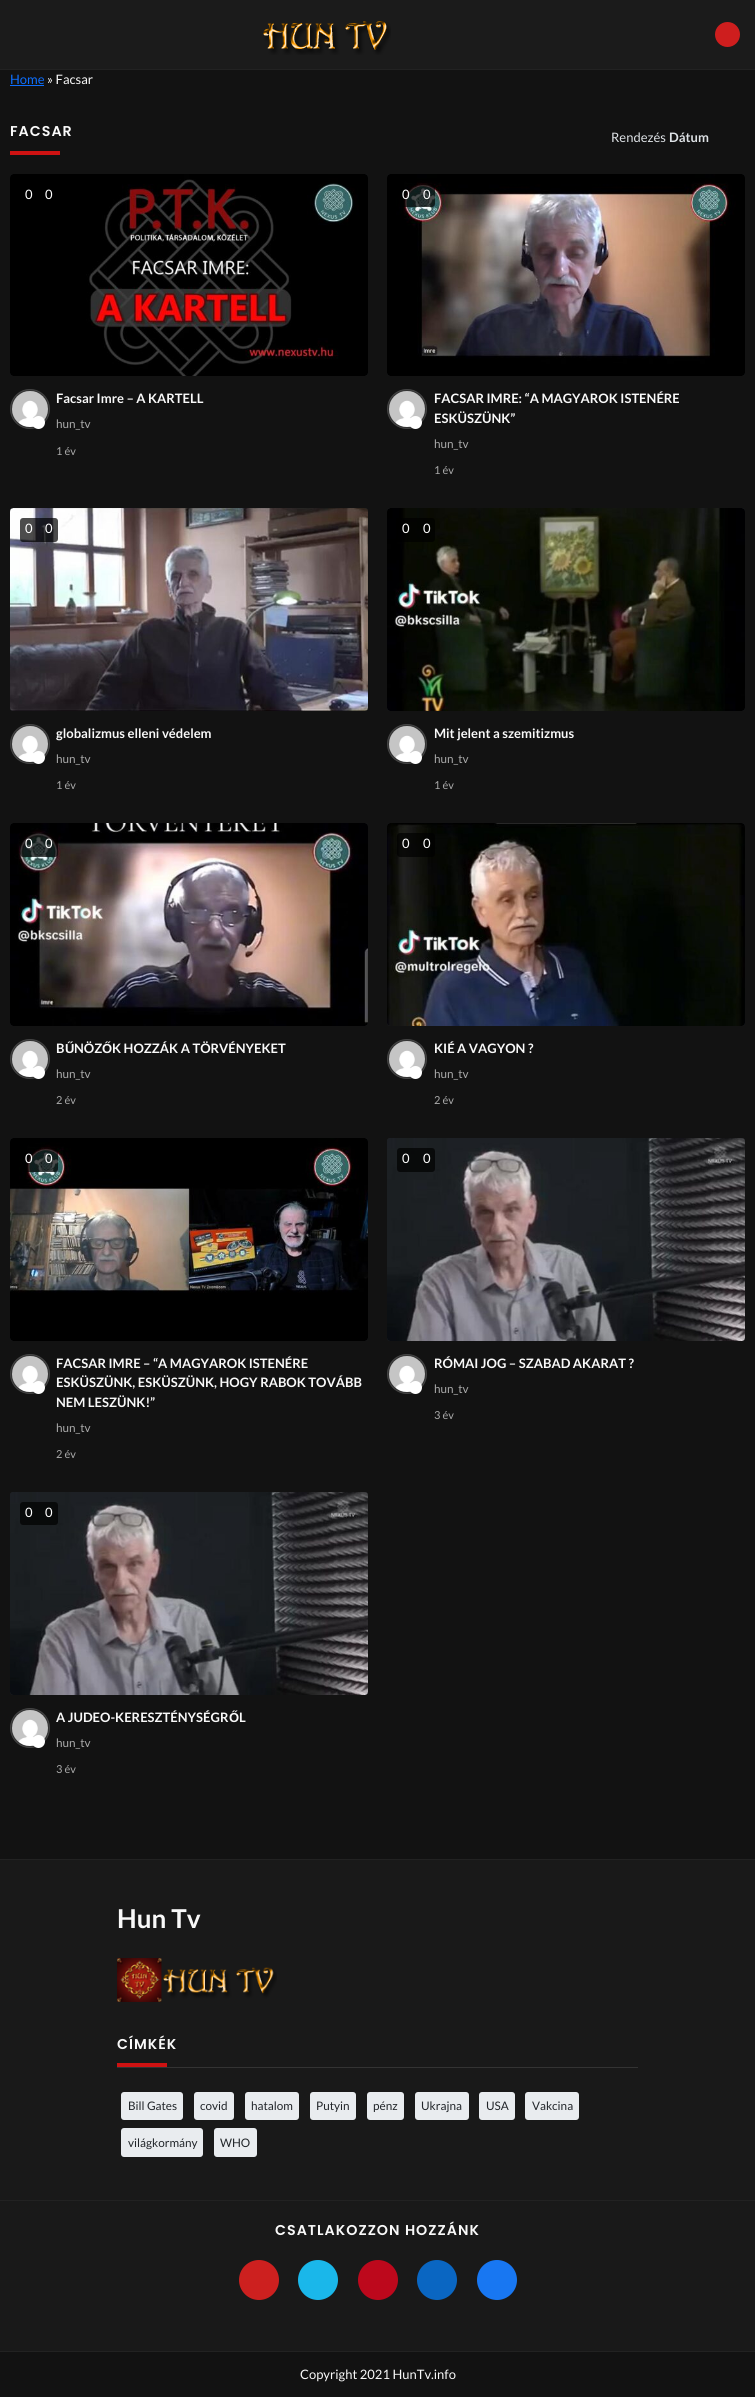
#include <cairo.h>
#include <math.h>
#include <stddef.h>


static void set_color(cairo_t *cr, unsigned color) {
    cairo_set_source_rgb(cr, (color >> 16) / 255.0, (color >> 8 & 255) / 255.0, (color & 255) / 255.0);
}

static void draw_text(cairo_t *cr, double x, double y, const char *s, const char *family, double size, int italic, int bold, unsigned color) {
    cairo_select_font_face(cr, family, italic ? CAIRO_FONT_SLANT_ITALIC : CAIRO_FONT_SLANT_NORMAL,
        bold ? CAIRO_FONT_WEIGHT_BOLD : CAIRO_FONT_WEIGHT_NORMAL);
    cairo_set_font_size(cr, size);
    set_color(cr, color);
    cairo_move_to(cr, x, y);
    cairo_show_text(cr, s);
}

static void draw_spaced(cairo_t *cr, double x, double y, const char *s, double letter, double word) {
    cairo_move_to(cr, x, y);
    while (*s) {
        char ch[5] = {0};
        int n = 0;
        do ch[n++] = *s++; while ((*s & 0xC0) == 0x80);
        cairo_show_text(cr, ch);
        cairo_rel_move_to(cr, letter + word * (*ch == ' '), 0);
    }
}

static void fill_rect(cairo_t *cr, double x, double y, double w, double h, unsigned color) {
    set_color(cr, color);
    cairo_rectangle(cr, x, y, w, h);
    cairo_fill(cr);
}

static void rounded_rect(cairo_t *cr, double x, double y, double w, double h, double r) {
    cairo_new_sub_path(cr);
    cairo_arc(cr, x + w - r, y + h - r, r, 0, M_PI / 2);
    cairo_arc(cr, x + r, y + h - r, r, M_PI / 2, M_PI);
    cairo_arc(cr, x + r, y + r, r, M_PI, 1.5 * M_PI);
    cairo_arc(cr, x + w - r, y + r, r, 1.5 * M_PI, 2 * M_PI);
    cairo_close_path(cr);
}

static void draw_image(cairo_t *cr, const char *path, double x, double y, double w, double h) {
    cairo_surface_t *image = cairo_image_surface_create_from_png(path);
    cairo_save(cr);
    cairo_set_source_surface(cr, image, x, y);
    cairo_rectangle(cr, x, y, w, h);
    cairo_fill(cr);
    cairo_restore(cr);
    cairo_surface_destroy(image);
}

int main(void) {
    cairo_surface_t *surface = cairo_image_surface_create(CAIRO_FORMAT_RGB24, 755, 2397);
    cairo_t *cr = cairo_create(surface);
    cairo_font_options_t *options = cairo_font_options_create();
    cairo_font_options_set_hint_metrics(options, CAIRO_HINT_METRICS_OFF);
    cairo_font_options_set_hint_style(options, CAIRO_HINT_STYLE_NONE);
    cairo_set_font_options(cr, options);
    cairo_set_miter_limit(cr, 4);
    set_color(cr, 0x121212);
    cairo_paint(cr);
    fill_rect(cr, 0, 0, 755, 69, 0x1B1B1B);
    fill_rect(cr, 0, 69, 755, 1, 0x222222);
    draw_image(cr, "assets/img1.png", 263, 21, 128, 34);
    set_color(cr, 0xCE1E1E);
    cairo_arc(cr, 727.5, 34.5, 12.5, 0, 2 * M_PI);
    cairo_fill(cr);
    draw_text(cr, 10, 84, "Home", "Lato", 13, 0, 0, 0x0D6EFD);
    fill_rect(cr, 10, 85, 34, 1, 0x0D6EFD);
    draw_text(cr, 47, 84, "» Facsar", "Lato", 13, 0, 0, 0xF9F9F9);
    cairo_select_font_face(cr, "Poppins SemiBold", CAIRO_FONT_SLANT_NORMAL, CAIRO_FONT_WEIGHT_NORMAL);
    cairo_set_font_size(cr, 14.25);
    draw_spaced(cr, 10, 136, "FACSAR", 1, 0);
    fill_rect(cr, 10, 151, 50, 4, 0xCE1212);
    draw_text(cr, 611, 142, "Rendezés", "Lato", 13, 0, 0, 0xDEE2E6);
    draw_text(cr, 669, 142, "Dátum", "Lato", 13, 0, 1, 0xDEE2E6);
    set_color(cr, 0x212529);
    rounded_rect(cr, 10, 174, 358, 202, 3);
    cairo_fill(cr);
    draw_image(cr, "assets/img2.png", 10, 174, 358, 202);
    draw_text(cr, 25, 199, "0", "Lato", 13, 0, 0, 0xFFFFFF);
    draw_text(cr, 45, 199, "0", "Lato", 13, 0, 0, 0xFFFFFF);
    set_color(cr, 0x333333);
    cairo_new_path(cr);
    cairo_arc(cr, 30, 409, 19.5, 0, 2 * M_PI);
    cairo_fill_preserve(cr);
    set_color(cr, 0x444444);
    cairo_set_line_width(cr, 1);
    cairo_stroke(cr);
    draw_image(cr, "assets/img3.png", 12, 391, 36, 36);
    set_color(cr, 0xFFFFFF);
    cairo_arc(cr, 38.5, 422.5, 6.5, 0, 2 * M_PI);
    cairo_fill(cr);
    draw_text(cr, 56, 403, "Facsar Imre – A KARTELL", "Lato", 13, 0, 1, 0xF9F9F9);
    draw_text(cr, 56, 428, "hun_tv", "Lato", 11.75, 0, 0, 0xAAAAAA);
    draw_text(cr, 56, 455, "1 év", "Lato", 11, 0, 0, 0xAAAAAA);
    set_color(cr, 0x212529);
    rounded_rect(cr, 387, 174, 358, 202, 3);
    cairo_fill(cr);
    draw_image(cr, "assets/img4.png", 387, 174, 358, 202);
    cairo_set_source_rgba(cr, 0, 0, 0, 0.7);
    rounded_rect(cr, 397, 184, 38, 23, 3);
    cairo_fill(cr);
    draw_text(cr, 402, 199, "0", "Lato", 13, 0, 0, 0xFFFFFF);
    draw_text(cr, 423, 199, "0", "Lato", 13, 0, 0, 0xFFFFFF);
    set_color(cr, 0x333333);
    cairo_new_path(cr);
    cairo_arc(cr, 407, 409, 19.5, 0, 2 * M_PI);
    cairo_fill_preserve(cr);
    set_color(cr, 0x444444);
    cairo_stroke(cr);
    draw_image(cr, "assets/img3.png", 389, 391, 36, 36);
    set_color(cr, 0xFFFFFF);
    cairo_arc(cr, 415.5, 422.5, 6.5, 0, 2 * M_PI);
    cairo_fill(cr);
    draw_text(cr, 434, 403, "FACSAR IMRE: “A MAGYAROK ISTENÉRE", "Lato", 13, 0, 1, 0xF9F9F9);
    draw_text(cr, 434, 423, "ESKÜSZÜNK”", "Lato", 13, 0, 1, 0xF9F9F9);
    draw_text(cr, 434, 448, "hun_tv", "Lato", 11.75, 0, 0, 0xAAAAAA);
    draw_text(cr, 434, 474, "1 év", "Lato", 11, 0, 0, 0xAAAAAA);
    set_color(cr, 0x212529);
    rounded_rect(cr, 10, 508, 358, 203, 3);
    cairo_fill(cr);
    draw_image(cr, "assets/img5.png", 10, 508, 358, 203);
    cairo_set_source_rgba(cr, 0, 0, 0, 0.7);
    rounded_rect(cr, 20, 518, 38, 24, 3);
    cairo_fill(cr);
    draw_text(cr, 25, 533, "0", "Lato", 13, 0, 0, 0xFFFFFF);
    draw_text(cr, 45, 533, "0", "Lato", 13, 0, 0, 0xFFFFFF);
    set_color(cr, 0x333333);
    cairo_new_path(cr);
    cairo_arc(cr, 30, 744, 19.5, 0, 2 * M_PI);
    cairo_fill_preserve(cr);
    set_color(cr, 0x444444);
    cairo_stroke(cr);
    draw_image(cr, "assets/img3.png", 12, 726, 36, 36);
    set_color(cr, 0xFFFFFF);
    cairo_arc(cr, 38.5, 757.5, 6.5, 0, 2 * M_PI);
    cairo_fill(cr);
    draw_text(cr, 56, 738, "globalizmus elleni védelem", "Lato", 13, 0, 1, 0xF9F9F9);
    draw_text(cr, 56, 763, "hun_tv", "Lato", 11.75, 0, 0, 0xAAAAAA);
    draw_text(cr, 56, 789, "1 év", "Lato", 11, 0, 0, 0xAAAAAA);
    set_color(cr, 0x212529);
    rounded_rect(cr, 387, 508, 358, 203, 3);
    cairo_fill(cr);
    draw_image(cr, "assets/img6.png", 387, 508, 358, 203);
    cairo_set_source_rgba(cr, 0, 0, 0, 0.7);
    rounded_rect(cr, 397, 518, 38, 24, 3);
    cairo_fill(cr);
    draw_text(cr, 402, 533, "0", "Lato", 13, 0, 0, 0xFFFFFF);
    draw_text(cr, 423, 533, "0", "Lato", 13, 0, 0, 0xFFFFFF);
    set_color(cr, 0x333333);
    cairo_new_path(cr);
    cairo_arc(cr, 407, 744, 19.5, 0, 2 * M_PI);
    cairo_fill_preserve(cr);
    set_color(cr, 0x444444);
    cairo_stroke(cr);
    draw_image(cr, "assets/img3.png", 389, 726, 36, 36);
    set_color(cr, 0xFFFFFF);
    cairo_arc(cr, 415.5, 757.5, 6.5, 0, 2 * M_PI);
    cairo_fill(cr);
    draw_text(cr, 434, 738, "Mit jelent a szemitizmus", "Lato", 13, 0, 1, 0xF9F9F9);
    draw_text(cr, 434, 763, "hun_tv", "Lato", 11.75, 0, 0, 0xAAAAAA);
    draw_text(cr, 434, 789, "1 év", "Lato", 11, 0, 0, 0xAAAAAA);
    set_color(cr, 0x212529);
    rounded_rect(cr, 10, 823, 358, 203, 3);
    cairo_fill(cr);
    draw_image(cr, "assets/img7.png", 10, 823, 358, 203);
    cairo_set_source_rgba(cr, 0, 0, 0, 0.7);
    rounded_rect(cr, 20, 833, 38, 24, 3);
    cairo_fill(cr);
    draw_text(cr, 25, 848, "0", "Lato", 13, 0, 0, 0xFFFFFF);
    draw_text(cr, 45, 848, "0", "Lato", 13, 0, 0, 0xFFFFFF);
    set_color(cr, 0x333333);
    cairo_new_path(cr);
    cairo_arc(cr, 30, 1059, 19.5, 0, 2 * M_PI);
    cairo_fill_preserve(cr);
    set_color(cr, 0x444444);
    cairo_stroke(cr);
    draw_image(cr, "assets/img3.png", 12, 1041, 36, 36);
    set_color(cr, 0xFFFFFF);
    cairo_arc(cr, 38.5, 1072.5, 6.5, 0, 2 * M_PI);
    cairo_fill(cr);
    draw_text(cr, 56, 1053, "B", "Lato", 13, 0, 1, 0xF9F9F9);
    draw_text(cr, 65, 1053, "Ű", "Liberation Sans", 13, 0, 1, 0xF9F9F9);
    draw_text(cr, 74, 1053, "NÖZ", "Lato", 13, 0, 1, 0xF9F9F9);
    draw_text(cr, 102, 1053, "Ő", "Liberation Sans", 13, 0, 1, 0xF9F9F9);
    draw_text(cr, 112, 1053, "K HOZZÁK A TÖRVÉNYEKET", "Lato", 13, 0, 1, 0xF9F9F9);
    draw_text(cr, 56, 1078, "hun_tv", "Lato", 11.75, 0, 0, 0xAAAAAA);
    draw_text(cr, 56, 1104, "2 év", "Lato", 11, 0, 0, 0xAAAAAA);
    set_color(cr, 0x212529);
    rounded_rect(cr, 387, 823, 358, 203, 3);
    cairo_fill(cr);
    draw_image(cr, "assets/img8.png", 387, 823, 358, 203);
    cairo_set_source_rgba(cr, 0, 0, 0, 0.7);
    rounded_rect(cr, 397, 833, 38, 24, 3);
    cairo_fill(cr);
    draw_text(cr, 402, 848, "0", "Lato", 13, 0, 0, 0xFFFFFF);
    draw_text(cr, 423, 848, "0", "Lato", 13, 0, 0, 0xFFFFFF);
    set_color(cr, 0x333333);
    cairo_new_path(cr);
    cairo_arc(cr, 407, 1059, 19.5, 0, 2 * M_PI);
    cairo_fill_preserve(cr);
    set_color(cr, 0x444444);
    cairo_stroke(cr);
    draw_image(cr, "assets/img3.png", 389, 1041, 36, 36);
    set_color(cr, 0xFFFFFF);
    cairo_arc(cr, 415.5, 1072.5, 6.5, 0, 2 * M_PI);
    cairo_fill(cr);
    draw_text(cr, 434, 1053, "KIÉ A VAGYON ?", "Lato", 13, 0, 1, 0xF9F9F9);
    draw_text(cr, 434, 1078, "hun_tv", "Lato", 11.75, 0, 0, 0xAAAAAA);
    draw_text(cr, 434, 1104, "2 év", "Lato", 11, 0, 0, 0xAAAAAA);
    set_color(cr, 0x212529);
    rounded_rect(cr, 10, 1138, 358, 203, 3);
    cairo_fill(cr);
    draw_image(cr, "assets/img9.png", 10, 1138, 358, 203);
    cairo_set_source_rgba(cr, 0, 0, 0, 0.7);
    rounded_rect(cr, 20, 1148, 38, 24, 3);
    cairo_fill(cr);
    draw_text(cr, 25, 1163, "0", "Lato", 13, 0, 0, 0xFFFFFF);
    draw_text(cr, 45, 1163, "0", "Lato", 13, 0, 0, 0xFFFFFF);
    set_color(cr, 0x333333);
    cairo_new_path(cr);
    cairo_arc(cr, 30, 1374, 19.5, 0, 2 * M_PI);
    cairo_fill_preserve(cr);
    set_color(cr, 0x444444);
    cairo_stroke(cr);
    draw_image(cr, "assets/img3.png", 12, 1356, 36, 36);
    set_color(cr, 0xFFFFFF);
    cairo_arc(cr, 38.5, 1387.5, 6.5, 0, 2 * M_PI);
    cairo_fill(cr);
    draw_text(cr, 56, 1368, "FACSAR IMRE – “A MAGYAROK ISTENÉRE", "Lato", 13, 0, 1, 0xF9F9F9);
    draw_text(cr, 56, 1387, "ESKÜSZÜNK, ESKÜSZÜNK, HOGY RABOK TOVÁBB", "Lato", 13, 0, 1, 0xF9F9F9);
    draw_text(cr, 56, 1407, "NEM LESZÜNK!”", "Lato", 13, 0, 1, 0xF9F9F9);
    draw_text(cr, 56, 1432, "hun_tv", "Lato", 11.75, 0, 0, 0xAAAAAA);
    draw_text(cr, 56, 1458, "2 év", "Lato", 11, 0, 0, 0xAAAAAA);
    set_color(cr, 0x212529);
    rounded_rect(cr, 387, 1138, 358, 203, 3);
    cairo_fill(cr);
    draw_image(cr, "assets/img10.png", 387, 1138, 358, 203);
    cairo_set_source_rgba(cr, 0, 0, 0, 0.7);
    rounded_rect(cr, 397, 1148, 38, 24, 3);
    cairo_fill(cr);
    draw_text(cr, 402, 1163, "0", "Lato", 13, 0, 0, 0xFFFFFF);
    draw_text(cr, 423, 1163, "0", "Lato", 13, 0, 0, 0xFFFFFF);
    set_color(cr, 0x333333);
    cairo_new_path(cr);
    cairo_arc(cr, 407, 1374, 19.5, 0, 2 * M_PI);
    cairo_fill_preserve(cr);
    set_color(cr, 0x444444);
    cairo_stroke(cr);
    draw_image(cr, "assets/img3.png", 389, 1356, 36, 36);
    set_color(cr, 0xFFFFFF);
    cairo_arc(cr, 415.5, 1387.5, 6.5, 0, 2 * M_PI);
    cairo_fill(cr);
    draw_text(cr, 434, 1368, "RÓMAI JOG – SZABAD AKARAT ?", "Lato", 13, 0, 1, 0xF9F9F9);
    draw_text(cr, 434, 1393, "hun_tv", "Lato", 11.75, 0, 0, 0xAAAAAA);
    draw_text(cr, 434, 1419, "3 év", "Lato", 11, 0, 0, 0xAAAAAA);
    set_color(cr, 0x212529);
    rounded_rect(cr, 10, 1492, 358, 203, 3);
    cairo_fill(cr);
    draw_image(cr, "assets/img11.png", 10, 1492, 358, 203);
    cairo_set_source_rgba(cr, 0, 0, 0, 0.7);
    rounded_rect(cr, 20, 1502, 38, 23, 3);
    cairo_fill(cr);
    draw_text(cr, 25, 1517, "0", "Lato", 13, 0, 0, 0xFFFFFF);
    draw_text(cr, 45, 1517, "0", "Lato", 13, 0, 0, 0xFFFFFF);
    set_color(cr, 0x333333);
    cairo_new_path(cr);
    cairo_arc(cr, 30, 1728, 19.5, 0, 2 * M_PI);
    cairo_fill_preserve(cr);
    set_color(cr, 0x444444);
    cairo_stroke(cr);
    draw_image(cr, "assets/img3.png", 12, 1710, 36, 36);
    set_color(cr, 0xFFFFFF);
    cairo_arc(cr, 38.5, 1741.5, 6.5, 0, 2 * M_PI);
    cairo_fill(cr);
    draw_text(cr, 56, 1722, "A JUDEO-KERESZTÉNYSÉGR", "Lato", 13, 0, 1, 0xF9F9F9);
    draw_text(cr, 229, 1722, "Ő", "Liberation Sans", 13, 0, 1, 0xF9F9F9);
    draw_text(cr, 239, 1722, "L", "Lato", 13, 0, 1, 0xF9F9F9);
    draw_text(cr, 56, 1747, "hun_tv", "Lato", 11.75, 0, 0, 0xAAAAAA);
    draw_text(cr, 56, 1773, "3 év", "Lato", 11, 0, 0, 0xAAAAAA);
    fill_rect(cr, 0, 1860, 755, 491, 0x191919);
    fill_rect(cr, 0, 1859, 755, 1, 0x222222);
    fill_rect(cr, 0, 2200, 755, 1, 0x222222);
    draw_text(cr, 117, 1928, "Hun Tv", "Lato", 26, 0, 1, 0xF9F9F9);
    draw_image(cr, "assets/img12.png", 117, 1958, 160, 44);
    fill_rect(cr, 117, 2067, 521, 1, 0x333333);
    cairo_select_font_face(cr, "Poppins SemiBold", CAIRO_FONT_SLANT_NORMAL, CAIRO_FONT_WEIGHT_NORMAL);
    cairo_set_font_size(cr, 14.25);
    set_color(cr, 0xF9F9F9);
    draw_spaced(cr, 117, 2049, "CÍMKÉK", 1, 0);
    fill_rect(cr, 117, 2063, 50, 4, 0xCE1212);
    set_color(cr, 0xE9ECEF);
    rounded_rect(cr, 121, 2092, 62, 28, 3);
    cairo_fill(cr);
    draw_text(cr, 128, 2110, "Bill Gates", "Lato", 11.75, 0, 0, 0x212529);
    set_color(cr, 0xE9ECEF);
    rounded_rect(cr, 194, 2092, 40, 28, 3);
    cairo_fill(cr);
    draw_text(cr, 200, 2110, "covid", "Lato", 11.75, 0, 0, 0x212529);
    set_color(cr, 0xE9ECEF);
    rounded_rect(cr, 245, 2092, 54, 28, 3);
    cairo_fill(cr);
    draw_text(cr, 251, 2110, "hatalom", "Lato", 11.75, 0, 0, 0x212529);
    set_color(cr, 0xE9ECEF);
    rounded_rect(cr, 310, 2092, 46, 28, 3);
    cairo_fill(cr);
    draw_text(cr, 316, 2110, "Putyin", "Lato", 11.75, 0, 0, 0x212529);
    set_color(cr, 0xE9ECEF);
    rounded_rect(cr, 367, 2092, 37, 28, 3);
    cairo_fill(cr);
    draw_text(cr, 373, 2110, "pénz", "Lato", 11.75, 0, 0, 0x212529);
    set_color(cr, 0xE9ECEF);
    rounded_rect(cr, 415, 2092, 54, 28, 3);
    cairo_fill(cr);
    draw_text(cr, 421, 2110, "Ukrajna", "Lato", 11.75, 0, 0, 0x212529);
    set_color(cr, 0xE9ECEF);
    rounded_rect(cr, 479, 2092, 36, 28, 3);
    cairo_fill(cr);
    draw_text(cr, 486, 2110, "USA", "Lato", 11.75, 0, 0, 0x212529);
    set_color(cr, 0xE9ECEF);
    rounded_rect(cr, 525, 2092, 54, 28, 3);
    cairo_fill(cr);
    draw_text(cr, 532, 2110, "Vakcina", "Lato", 11.75, 0, 0, 0x212529);
    set_color(cr, 0xE9ECEF);
    rounded_rect(cr, 121, 2128, 82, 29, 3);
    cairo_fill(cr);
    draw_text(cr, 128, 2147, "világkormány", "Lato", 11.75, 0, 0, 0x212529);
    set_color(cr, 0xE9ECEF);
    rounded_rect(cr, 214, 2128, 43, 29, 3);
    cairo_fill(cr);
    draw_text(cr, 220, 2147, "WHO", "Lato", 11.75, 0, 0, 0x212529);
    cairo_select_font_face(cr, "Poppins SemiBold", CAIRO_FONT_SLANT_NORMAL, CAIRO_FONT_WEIGHT_NORMAL);
    cairo_set_font_size(cr, 14.25);
    set_color(cr, 0xF9F9F9);
    draw_spaced(cr, 275, 2235, "CSATLAKOZZON HOZZÁNK", 1, 0);
    set_color(cr, 0xCD201F);
    cairo_new_path(cr);
    cairo_arc(cr, 259, 2280, 20, 0, 2 * M_PI);
    cairo_fill(cr);
    set_color(cr, 0x1AB7EA);
    cairo_arc(cr, 318, 2280, 20, 0, 2 * M_PI);
    cairo_fill(cr);
    set_color(cr, 0xBD081C);
    cairo_arc(cr, 378, 2280, 20, 0, 2 * M_PI);
    cairo_fill(cr);
    set_color(cr, 0x0A66C2);
    cairo_arc(cr, 437, 2280, 20, 0, 2 * M_PI);
    cairo_fill(cr);
    set_color(cr, 0x1877F2);
    cairo_arc(cr, 497, 2280, 20, 0, 2 * M_PI);
    cairo_fill(cr);
    fill_rect(cr, 0, 2351, 755, 1, 0x222222);
    draw_text(cr, 300, 2379, "Copyright 2021 HunTv.info", "Lato", 13, 0, 0, 0xF9F9F9);
    cairo_surface_write_to_png(surface, "output.png");
    cairo_font_options_destroy(options);
    cairo_destroy(cr);
    cairo_surface_destroy(surface);
    return 0;
}
